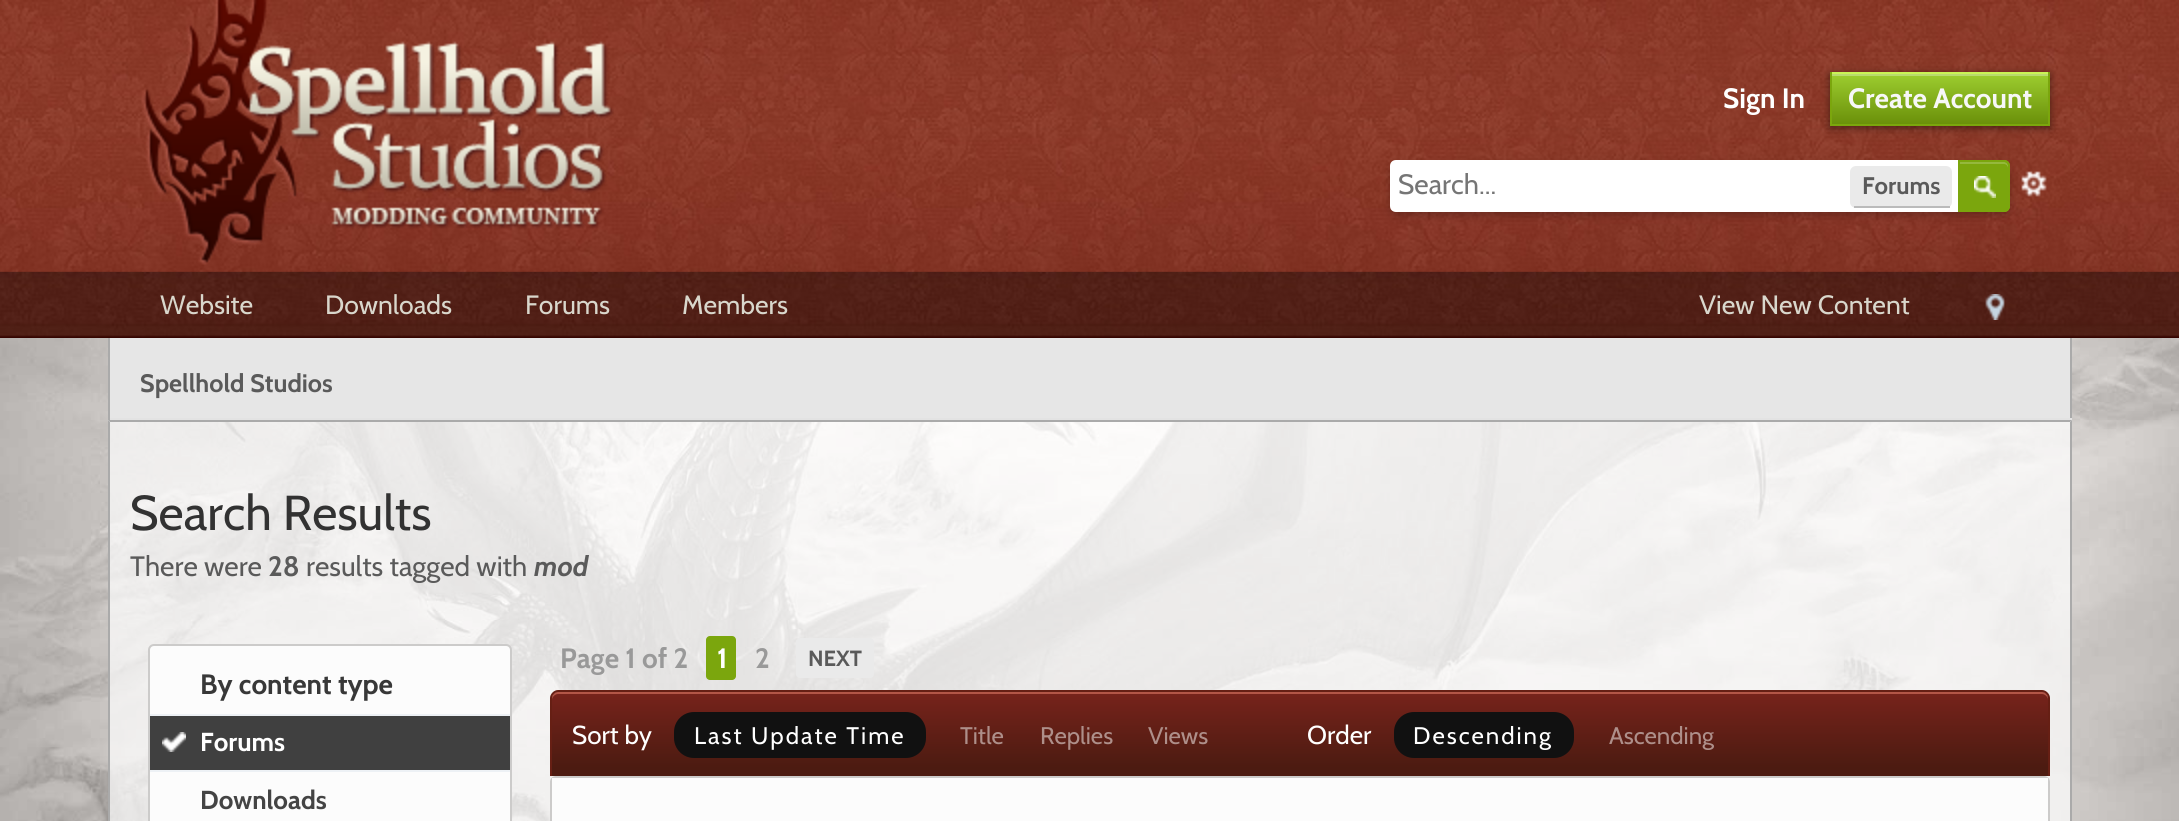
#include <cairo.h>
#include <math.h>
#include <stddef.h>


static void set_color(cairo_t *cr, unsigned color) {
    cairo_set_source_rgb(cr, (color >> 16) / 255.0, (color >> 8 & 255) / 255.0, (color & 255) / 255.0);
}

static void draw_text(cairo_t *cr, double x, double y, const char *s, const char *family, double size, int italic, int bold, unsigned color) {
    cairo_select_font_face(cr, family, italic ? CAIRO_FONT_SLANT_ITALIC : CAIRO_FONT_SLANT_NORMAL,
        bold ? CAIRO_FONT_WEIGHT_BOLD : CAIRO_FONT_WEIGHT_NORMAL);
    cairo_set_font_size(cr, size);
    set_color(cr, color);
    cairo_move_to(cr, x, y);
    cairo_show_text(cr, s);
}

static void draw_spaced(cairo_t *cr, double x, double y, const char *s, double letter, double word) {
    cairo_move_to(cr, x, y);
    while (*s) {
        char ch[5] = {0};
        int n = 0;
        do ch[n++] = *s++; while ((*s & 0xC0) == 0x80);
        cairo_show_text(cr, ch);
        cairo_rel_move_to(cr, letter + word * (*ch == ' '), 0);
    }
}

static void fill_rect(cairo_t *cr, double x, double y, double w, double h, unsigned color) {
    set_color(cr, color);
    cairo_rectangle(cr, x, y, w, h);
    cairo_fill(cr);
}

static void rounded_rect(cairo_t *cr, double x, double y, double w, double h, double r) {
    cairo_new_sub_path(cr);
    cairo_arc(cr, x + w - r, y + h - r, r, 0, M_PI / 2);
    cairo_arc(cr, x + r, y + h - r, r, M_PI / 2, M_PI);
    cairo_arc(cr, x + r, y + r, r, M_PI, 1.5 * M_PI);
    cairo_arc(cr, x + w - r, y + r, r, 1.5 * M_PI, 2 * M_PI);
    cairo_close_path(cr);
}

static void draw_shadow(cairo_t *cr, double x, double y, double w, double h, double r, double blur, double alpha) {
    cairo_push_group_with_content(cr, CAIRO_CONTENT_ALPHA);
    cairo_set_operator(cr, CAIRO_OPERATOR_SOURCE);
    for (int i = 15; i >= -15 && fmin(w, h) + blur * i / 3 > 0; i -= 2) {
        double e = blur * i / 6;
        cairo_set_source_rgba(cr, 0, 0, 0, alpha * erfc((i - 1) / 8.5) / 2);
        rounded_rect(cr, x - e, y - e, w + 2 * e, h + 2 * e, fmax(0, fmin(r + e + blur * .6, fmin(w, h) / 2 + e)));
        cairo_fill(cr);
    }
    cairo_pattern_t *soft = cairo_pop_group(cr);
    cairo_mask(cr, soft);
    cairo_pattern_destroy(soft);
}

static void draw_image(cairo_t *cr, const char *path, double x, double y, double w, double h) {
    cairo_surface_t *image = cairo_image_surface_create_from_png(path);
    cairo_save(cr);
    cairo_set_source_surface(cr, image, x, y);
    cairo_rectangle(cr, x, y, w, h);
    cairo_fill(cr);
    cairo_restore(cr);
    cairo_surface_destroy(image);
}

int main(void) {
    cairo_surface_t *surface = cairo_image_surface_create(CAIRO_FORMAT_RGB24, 2179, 821);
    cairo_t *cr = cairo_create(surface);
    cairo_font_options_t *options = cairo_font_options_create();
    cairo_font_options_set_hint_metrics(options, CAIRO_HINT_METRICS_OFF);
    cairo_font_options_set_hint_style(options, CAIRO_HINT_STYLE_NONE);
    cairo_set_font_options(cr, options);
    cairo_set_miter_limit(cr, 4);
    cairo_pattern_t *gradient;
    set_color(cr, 0xFFFFFF);
    cairo_paint(cr);
    draw_image(cr, "assets/img1.png", 0, 338, 2179, 483);
    draw_image(cr, "assets/img2.png", 0, 0, 2179, 272);
    draw_image(cr, "assets/img3.png", 141, 0, 473, 265);
    draw_text(cr, 1723, 108, "Sign In", "Cabin", 28, 0, 1, 0xFFFFFF);
    set_color(cr, 0x000000);
    draw_shadow(cr, 1830, 74, 220, 54, 0, 4, 0.47);
    gradient = cairo_pattern_create_linear(1940, 74, 1940, 124);
    cairo_pattern_add_color_stop_rgba(gradient, 0, 0.616, 0.804, 0.184, 1);
    cairo_pattern_add_color_stop_rgba(gradient, 1, 0.416, 0.565, 0.039, 1);
    cairo_set_source(cr, gradient);
    cairo_pattern_destroy(gradient);
    cairo_rectangle(cr, 1832, 76, 216, 48);
    cairo_fill(cr);
    fill_rect(cr, 1832, 74, 216, 2, 0xB9DB6D);
    fill_rect(cr, 1830, 72, 220, 2, 0xC9F456);
    fill_rect(cr, 2048, 72, 2, 54, 0x7BA60D);
    fill_rect(cr, 1830, 124, 220, 2, 0x7BA60D);
    fill_rect(cr, 1830, 72, 2, 54, 0x7BA60D);
    draw_text(cr, 1848, 108, "Create Account", "Cabin", 28, 0, 1, 0xF7F7F7);
    draw_image(cr, "assets/img5.png", 2021, 171, 26, 26);
    set_color(cr, 0x000000);
    draw_shadow(cr, 1390, 164, 620, 52, 8, 4, 0.2);
    set_color(cr, 0xFFFFFF);
    cairo_new_path(cr);
    cairo_move_to(cr, 1396, 160);
    cairo_line_to(cr, 2002, 160);
    cairo_curve_to(cr, 2006.5, 160, 2010, 163.5, 2010, 168);
    cairo_line_to(cr, 2010, 204);
    cairo_curve_to(cr, 2010, 208.5, 2006.5, 212, 2002, 212);
    cairo_line_to(cr, 1396, 212);
    cairo_curve_to(cr, 1392.5, 212, 1390, 209.5, 1390, 206);
    cairo_line_to(cr, 1390, 166);
    cairo_curve_to(cr, 1390, 162.5, 1392.5, 160, 1396, 160);
    cairo_close_path(cr);
    cairo_fill(cr);
    draw_text(cr, 1398, 194, "Search...", "Cabin", 28, 0, 0, 0x757575);
    set_color(cr, 0xEAEAEA);
    rounded_rect(cr, 1850, 166, 102, 42, 6);
    cairo_fill(cr);
    fill_rect(cr, 1854, 206, 96, 2, 0xBBBBBB);
    draw_text(cr, 1862, 194, "Forums", "Cabin", 24, 0, 1, 0x5A5A5A);
    set_color(cr, 0x7BA60D);
    cairo_new_path(cr);
    cairo_move_to(cr, 1958, 160);
    cairo_line_to(cr, 2004, 160);
    cairo_curve_to(cr, 2007.5, 160, 2010, 162.5, 2010, 166);
    cairo_line_to(cr, 2010, 206);
    cairo_curve_to(cr, 2010, 209.5, 2007.5, 212, 2004, 212);
    cairo_line_to(cr, 1958, 212);
    cairo_close_path(cr);
    cairo_fill(cr);
    draw_image(cr, "assets/img4.png", 1974, 176, 22, 22);
    set_color(cr, 0x95B83D);
    cairo_new_path(cr);
    cairo_move_to(cr, 1960, 164);
    cairo_line_to(cr, 2004, 164);
    cairo_curve_to(cr, 2006, 164, 2008, 166, 2008, 168);
    cairo_line_to(cr, 2008, 166);
    cairo_curve_to(cr, 2008, 164, 2006, 162, 2004, 162);
    cairo_line_to(cr, 1960, 162);
    cairo_close_path(cr);
    cairo_fill(cr);
    cairo_new_path(cr);
    cairo_move_to(cr, 1959, 161);
    cairo_line_to(cr, 2004, 161);
    cairo_curve_to(cr, 2007, 161, 2009, 163, 2009, 166);
    cairo_line_to(cr, 2009, 206);
    cairo_curve_to(cr, 2009, 209, 2007, 211, 2004, 211);
    cairo_line_to(cr, 1959, 211);
    cairo_close_path(cr);
    set_color(cr, 0x7BA60D);
    cairo_stroke(cr);
    draw_image(cr, "assets/img6.png", 0, 272, 2179, 66);
    draw_text(cr, 160, 314, "Website", "Cabin", 26.5, 0, 0, 0xD9D7CC);
    draw_text(cr, 325, 314, "Downloads", "Cabin", 26.5, 0, 0, 0xD9D7CC);
    draw_text(cr, 525, 314, "Forums", "Cabin", 26.5, 0, 0, 0xD9D7CC);
    draw_text(cr, 682, 314, "Members", "Cabin", 26.5, 0, 0, 0xD9D7CC);
    draw_text(cr, 1699, 314, "View New Content", "Cabin", 26.5, 0, 0, 0xD9D7CC);
    draw_image(cr, "assets/img7.png", 1985, 294, 20, 26);
    fill_rect(cr, 110, 338, 1960, 80, 0xE6E6E6);
    fill_rect(cr, 2070, 338, 2, 82, 0xAAAAAA);
    fill_rect(cr, 108, 418, 1964, 2, 0xE3E3E3);
    fill_rect(cr, 108, 338, 2, 82, 0xAAAAAA);
    draw_text(cr, 140, 392, "Spellhold Studios", "Cabin", 25.25, 0, 1, 0x5A5A5A);
    cairo_set_source_rgba(cr, 1, 1, 1, 0.7);
    cairo_rectangle(cr, 108, 420, 1964, 401);
    cairo_fill(cr);
    set_color(cr, 0xAAAAAA);
    cairo_new_path(cr);
    cairo_move_to(cr, 108, 420);
    cairo_line_to(cr, 110, 422);
    cairo_line_to(cr, 2070, 422);
    cairo_line_to(cr, 2072, 420);
    cairo_close_path(cr);
    cairo_fill(cr);
    cairo_new_path(cr);
    cairo_move_to(cr, 2072, 420);
    cairo_line_to(cr, 2070, 422);
    cairo_line_to(cr, 2070, 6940);
    cairo_curve_to(cr, 2070, 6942, 2069, 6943, 2068, 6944);
    cairo_line_to(cr, 2070, 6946);
    cairo_curve_to(cr, 2071, 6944, 2072, 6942, 2072, 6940);
    cairo_close_path(cr);
    cairo_fill(cr);
    cairo_new_path(cr);
    cairo_move_to(cr, 110, 422);
    cairo_line_to(cr, 108, 420);
    cairo_line_to(cr, 108, 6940);
    cairo_curve_to(cr, 108, 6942, 109, 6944, 110, 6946);
    cairo_line_to(cr, 112, 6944);
    cairo_curve_to(cr, 111, 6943, 110, 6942, 110, 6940);
    cairo_close_path(cr);
    cairo_fill(cr);
    draw_text(cr, 130, 530, "Search Results", "Cabin", 49, 0, 0, 0x323232);
    draw_text(cr, 130, 576, "There were", "Cabin", 28, 0, 0, 0x5A5A5A);
    draw_text(cr, 268, 576, "28", "Cabin", 28, 0, 1, 0x5A5A5A);
    draw_text(cr, 306, 576, "results tagged with", "Cabin", 28, 0, 0, 0x5A5A5A);
    draw_text(cr, 534, 576, "mod", "Cabin", 28, 1, 1, 0x5A5A5A);
    set_color(cr, 0xFCFCFC);
    rounded_rect(cr, 149, 645, 362, 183, 5);
    cairo_fill_preserve(cr);
    set_color(cr, 0xCCCBCA);
    cairo_stroke(cr);
    draw_text(cr, 200, 694, "By content type", "Cabin", 28, 0, 1, 0x383838);
    fill_rect(cr, 150, 714, 360, 2, 0xEDF1F5);
    fill_rect(cr, 150, 770, 360, 2, 0xEDF1F5);
    fill_rect(cr, 150, 716, 360, 54, 0x404040);
    draw_image(cr, "assets/img8.png", 162, 732, 24, 20);
    draw_text(cr, 200, 751, "Forums", "Cabin", 26, 0, 1, 0xFFFFFF);
    draw_text(cr, 200, 809, "Downloads", "Cabin", 26, 0, 1, 0x444444);
    draw_text(cr, 560, 668, "Page 1 of 2", "Cabin", 28, 0, 1, 0x999999);
    set_color(cr, 0x7BA60D);
    rounded_rect(cr, 706, 636, 30, 44, 4);
    cairo_fill(cr);
    draw_text(cr, 717, 668, "1", "Cabin", 28, 0, 1, 0xFFFFFF);
    draw_text(cr, 755, 668, "2", "Cabin", 28, 0, 1, 0x999999);
    set_color(cr, 0xEAEAEA);
    rounded_rect(cr, 796, 638, 78, 40, 4);
    cairo_fill(cr);
    draw_text(cr, 808, 666, "NEXT", "Cabin", 22, 0, 1, 0x5A5A5A);
    gradient = cairo_pattern_create_linear(1300, 692, 1300, 776);
    cairo_pattern_add_color_stop_rgba(gradient, 0, 0.467, 0.137, 0.106, 1);
    cairo_pattern_add_color_stop_rgba(gradient, 0.9, 0.298, 0.106, 0.067, 1);
    cairo_set_source(cr, gradient);
    cairo_pattern_destroy(gradient);
    cairo_new_path(cr);
    cairo_move_to(cr, 558, 692);
    cairo_line_to(cr, 2042, 692);
    cairo_curve_to(cr, 2045.5, 692, 2048, 694.5, 2048, 698);
    cairo_line_to(cr, 2048, 776);
    cairo_line_to(cr, 552, 776);
    cairo_line_to(cr, 552, 698);
    cairo_curve_to(cr, 552, 694.5, 554.5, 692, 558, 692);
    cairo_close_path(cr);
    cairo_fill(cr);
    set_color(cr, 0xB35647);
    cairo_new_path(cr);
    cairo_move_to(cr, 558, 694);
    cairo_line_to(cr, 2042, 694);
    cairo_curve_to(cr, 2045, 694, 2048, 697, 2048, 700);
    cairo_curve_to(cr, 2048, 696, 2047, 692, 2042, 692);
    cairo_line_to(cr, 558, 692);
    cairo_curve_to(cr, 553, 692, 552, 696, 552, 700);
    cairo_curve_to(cr, 552, 697, 555, 694, 558, 694);
    cairo_close_path(cr);
    cairo_fill(cr);
    set_color(cr, 0x661F14);
    cairo_set_fill_rule(cr, CAIRO_FILL_RULE_EVEN_ODD);
    cairo_new_path(cr);
    cairo_move_to(cr, 558, 690);
    cairo_line_to(cr, 2042, 690);
    cairo_curve_to(cr, 2046, 690, 2050, 694, 2050, 698);
    cairo_line_to(cr, 2050, 776);
    cairo_line_to(cr, 550, 776);
    cairo_line_to(cr, 550, 698);
    cairo_curve_to(cr, 550, 694, 554, 690, 558, 690);
    cairo_close_path(cr);
    cairo_move_to(cr, 558, 692);
    cairo_line_to(cr, 2042, 692);
    cairo_curve_to(cr, 2045, 692, 2048, 695, 2048, 698);
    cairo_line_to(cr, 2048, 776);
    cairo_line_to(cr, 552, 776);
    cairo_line_to(cr, 552, 698);
    cairo_curve_to(cr, 552, 695, 555, 692, 558, 692);
    cairo_close_path(cr);
    cairo_fill(cr);
    draw_text(cr, 572, 744, "Sort by", "Cabin", 26, 0, 0, 0xFFFFFF);
    set_color(cr, 0x111111);
    rounded_rect(cr, 674, 712, 252, 46, 20);
    cairo_fill(cr);
    cairo_set_font_size(cr, 24);
    set_color(cr, 0xFFFFFF);
    draw_spaced(cr, 694, 744, "Last Update Time", 2, 0);
    draw_text(cr, 960, 744, "Title", "Cabin", 24, 0, 0, 0xAE8F8A);
    draw_text(cr, 1040, 744, "Replies", "Cabin", 24, 0, 0, 0xAE8F8A);
    draw_text(cr, 1148, 744, "Views", "Cabin", 24, 0, 0, 0xAE8F8A);
    draw_text(cr, 1307, 744, "Order", "Cabin", 26, 0, 0, 0xFFFFFF);
    set_color(cr, 0x111111);
    rounded_rect(cr, 1394, 712, 180, 46, 20);
    cairo_fill(cr);
    cairo_set_font_size(cr, 24);
    set_color(cr, 0xFFFFFF);
    draw_spaced(cr, 1413, 744, "Descending", 2, 0);
    draw_text(cr, 1609, 744, "Ascending", "Cabin", 24, 0, 0, 0xAE8F8A);
    rounded_rect(cr, 551, 777, 1498, 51, 5);
    set_color(cr, 0xCCCBCA);
    cairo_stroke(cr);
    fill_rect(cr, 552, 778, 1496, 43, 0xFCFCFC);
    cairo_surface_write_to_png(surface, "output.png");
    cairo_font_options_destroy(options);
    cairo_destroy(cr);
    cairo_surface_destroy(surface);
    return 0;
}
